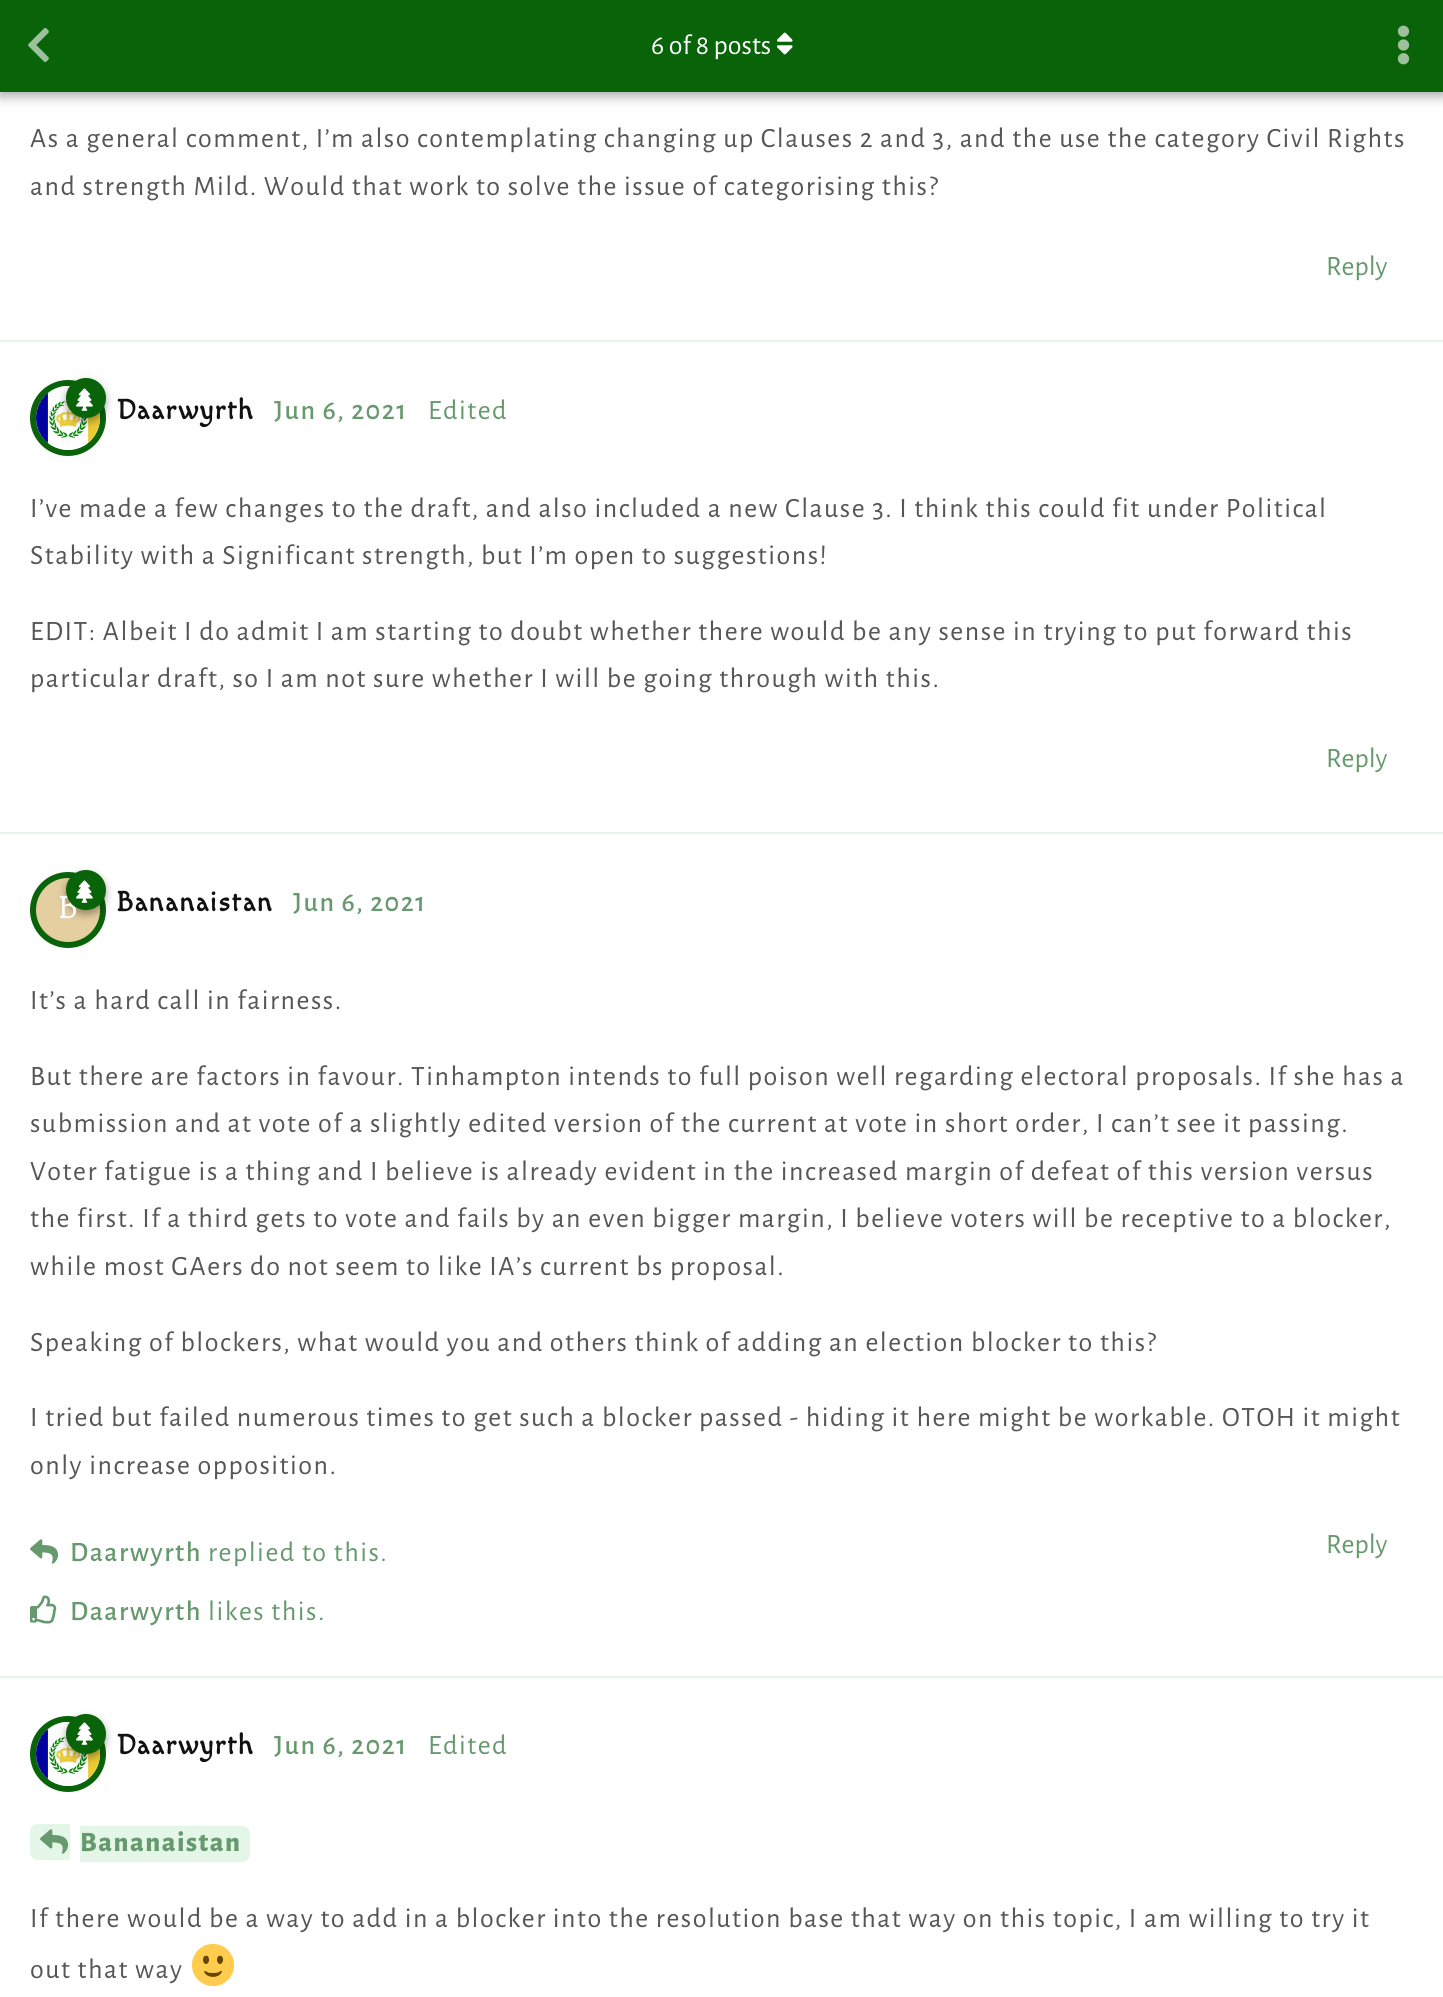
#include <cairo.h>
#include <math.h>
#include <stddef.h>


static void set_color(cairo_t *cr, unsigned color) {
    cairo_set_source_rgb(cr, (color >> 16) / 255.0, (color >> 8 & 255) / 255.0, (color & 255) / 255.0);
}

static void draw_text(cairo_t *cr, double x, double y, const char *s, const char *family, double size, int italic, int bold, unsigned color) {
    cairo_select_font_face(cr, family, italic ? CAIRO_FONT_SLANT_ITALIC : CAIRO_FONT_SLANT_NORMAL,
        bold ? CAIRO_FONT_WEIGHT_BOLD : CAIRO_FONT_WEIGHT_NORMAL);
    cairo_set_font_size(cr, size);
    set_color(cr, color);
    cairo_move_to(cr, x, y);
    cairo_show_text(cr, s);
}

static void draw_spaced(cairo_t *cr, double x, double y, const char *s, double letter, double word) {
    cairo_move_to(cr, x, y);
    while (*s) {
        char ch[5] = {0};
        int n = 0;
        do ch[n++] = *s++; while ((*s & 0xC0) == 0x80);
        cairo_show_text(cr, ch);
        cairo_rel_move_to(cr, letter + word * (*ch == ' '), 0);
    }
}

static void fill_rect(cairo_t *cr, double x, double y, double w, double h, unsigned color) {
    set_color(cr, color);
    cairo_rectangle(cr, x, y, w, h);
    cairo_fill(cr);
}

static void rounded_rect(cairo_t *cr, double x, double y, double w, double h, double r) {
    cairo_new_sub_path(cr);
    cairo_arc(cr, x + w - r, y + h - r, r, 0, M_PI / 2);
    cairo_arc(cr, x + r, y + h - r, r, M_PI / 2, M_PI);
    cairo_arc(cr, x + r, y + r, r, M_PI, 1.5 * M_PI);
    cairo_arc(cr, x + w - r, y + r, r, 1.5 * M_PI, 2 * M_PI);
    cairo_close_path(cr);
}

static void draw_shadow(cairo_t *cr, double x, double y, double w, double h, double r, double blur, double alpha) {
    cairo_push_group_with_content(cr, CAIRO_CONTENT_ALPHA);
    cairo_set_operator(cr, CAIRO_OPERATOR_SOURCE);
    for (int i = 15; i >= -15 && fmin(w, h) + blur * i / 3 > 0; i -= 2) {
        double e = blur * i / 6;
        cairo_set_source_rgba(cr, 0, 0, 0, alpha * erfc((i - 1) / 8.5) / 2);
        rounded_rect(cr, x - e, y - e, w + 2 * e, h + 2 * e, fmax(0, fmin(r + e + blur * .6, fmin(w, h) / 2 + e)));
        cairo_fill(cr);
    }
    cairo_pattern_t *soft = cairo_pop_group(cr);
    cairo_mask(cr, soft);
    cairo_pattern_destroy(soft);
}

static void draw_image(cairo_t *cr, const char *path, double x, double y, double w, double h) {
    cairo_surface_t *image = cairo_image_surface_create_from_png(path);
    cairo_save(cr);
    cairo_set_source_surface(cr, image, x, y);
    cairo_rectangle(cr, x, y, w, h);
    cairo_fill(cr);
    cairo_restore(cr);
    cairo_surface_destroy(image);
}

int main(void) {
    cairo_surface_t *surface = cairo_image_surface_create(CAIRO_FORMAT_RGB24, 1443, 1997);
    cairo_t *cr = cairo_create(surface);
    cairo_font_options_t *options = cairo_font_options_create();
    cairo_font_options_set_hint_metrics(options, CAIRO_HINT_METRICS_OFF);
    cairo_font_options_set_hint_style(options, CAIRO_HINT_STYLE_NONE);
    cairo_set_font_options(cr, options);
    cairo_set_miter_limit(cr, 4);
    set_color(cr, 0xFFFFFF);
    cairo_paint(cr);
    set_color(cr, 0x000000);
    draw_shadow(cr, 0, 4, 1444, 92, 0, 6, 0.35);
    fill_rect(cr, 0, 0, 1443, 92, 0x096309);
    draw_image(cr, "assets/img1.png", 28, 28, 21, 34);
    draw_text(cr, 651, 54, "6 of 8 posts", "Alegreya Sans", 28, 0, 0, 0xFFFFFF);
    draw_image(cr, "assets/img2.png", 777, 32, 16, 23);
    draw_image(cr, "assets/img3.png", 1397, 25, 13, 40);
    fill_rect(cr, 0, 340, 1443, 2, 0xE4F6E7);
    set_color(cr, 0x565656);
    draw_spaced(cr, 30, 147, "As a general comment, I’m also contemplating changing up Clauses 2 and 3, and the use the category Civil Rights", 1.5, 0);
    draw_spaced(cr, 30, 195, "and strength Mild. Would that work to solve the issue of categorising this?", 1.5, 0);
    draw_text(cr, 1326, 275, "Reply", "Alegreya Sans", 28, 0, 0, 0x66996D);
    fill_rect(cr, 0, 832, 1443, 2, 0xE4F6E7);
    cairo_new_path(cr);
    cairo_arc(cr, 68, 418, 35, 0, 2 * M_PI);
    cairo_fill_preserve(cr);
    set_color(cr, 0x096309);
    cairo_set_line_width(cr, 6);
    cairo_stroke(cr);
    draw_image(cr, "assets/img5.png", 36, 386, 64, 64);
    set_color(cr, 0x000000);
    draw_shadow(cr, 66, 382, 40, 40, 20, 4, 0.35);
    set_color(cr, 0x096309);
    cairo_arc(cr, 86, 398, 20, 0, 2 * M_PI);
    cairo_fill(cr);
    draw_image(cr, "assets/img4.png", 76, 388, 17, 23);
    cairo_select_font_face(cr, "Macondo", CAIRO_FONT_SLANT_NORMAL, CAIRO_FONT_WEIGHT_BOLD);
    set_color(cr, 0x111111);
    draw_spaced(cr, 116, 419, "Daarwyrth", 1.5, 0);
    cairo_select_font_face(cr, "Alegreya Sans Medium", CAIRO_FONT_SLANT_NORMAL, CAIRO_FONT_WEIGHT_NORMAL);
    set_color(cr, 0x66996D);
    draw_spaced(cr, 274, 419, "Jun 6, 2021", 1.5, 0);
    cairo_select_font_face(cr, "Alegreya Sans", CAIRO_FONT_SLANT_NORMAL, CAIRO_FONT_WEIGHT_NORMAL);
    draw_spaced(cr, 428, 419, "Edited", 1.5, 0);
    set_color(cr, 0x565656);
    draw_spaced(cr, 30, 517, "I’ve made a few changes to the draft, and also included a new Clause 3. I think this could fit under Political", 1.5, 0);
    draw_spaced(cr, 30, 564, "Stability with a Significant strength, but I’m open to suggestions!", 1.5, 0);
    draw_spaced(cr, 30, 640, "EDIT: Albeit I do admit I am starting to doubt whether there would be any sense in trying to put forward this", 1.5, 0);
    draw_spaced(cr, 30, 687, "particular draft, so I am not sure whether I will be going through with this.", 1.5, 0);
    draw_text(cr, 1326, 767, "Reply", "Alegreya Sans", 28, 0, 0, 0x66996D);
    fill_rect(cr, 0, 1676, 1443, 2, 0xE4F6E7);
    set_color(cr, 0xE5CEA0);
    cairo_new_path(cr);
    cairo_arc(cr, 68, 910, 35, 0, 2 * M_PI);
    cairo_fill_preserve(cr);
    set_color(cr, 0x096309);
    cairo_stroke(cr);
    set_color(cr, 0x000000);
    draw_shadow(cr, 66, 874, 40, 40, 20, 4, 0.35);
    cairo_select_font_face(cr, "Macondo", CAIRO_FONT_SLANT_NORMAL, CAIRO_FONT_WEIGHT_NORMAL);
    cairo_set_font_size(cr, 32);
    set_color(cr, 0xFFFFFF);
    draw_spaced(cr, 58, 918, "B", 1.5, 0);
    set_color(cr, 0x096309);
    cairo_new_path(cr);
    cairo_arc(cr, 86, 890, 20, 0, 2 * M_PI);
    cairo_fill(cr);
    draw_image(cr, "assets/img4.png", 76, 880, 17, 23);
    cairo_select_font_face(cr, "Macondo", CAIRO_FONT_SLANT_NORMAL, CAIRO_FONT_WEIGHT_BOLD);
    cairo_set_font_size(cr, 28);
    set_color(cr, 0x111111);
    draw_spaced(cr, 116, 911, "Bananaistan", 1.5, 0);
    cairo_select_font_face(cr, "Alegreya Sans Medium", CAIRO_FONT_SLANT_NORMAL, CAIRO_FONT_WEIGHT_NORMAL);
    set_color(cr, 0x66996D);
    draw_spaced(cr, 293, 911, "Jun 6, 2021", 1.5, 0);
    cairo_select_font_face(cr, "Alegreya Sans", CAIRO_FONT_SLANT_NORMAL, CAIRO_FONT_WEIGHT_NORMAL);
    set_color(cr, 0x565656);
    draw_spaced(cr, 30, 1009, "It’s a hard call in fairness.", 1.5, 0);
    draw_spaced(cr, 30, 1085, "But there are factors in favour. Tinhampton intends to full poison well regarding electoral proposals. If she has a", 1.5, 0);
    draw_spaced(cr, 30, 1132, "submission and at vote of a slightly edited version of the current at vote in short order, I can’t see it passing.", 1.5, 0);
    draw_spaced(cr, 30, 1180, "Voter fatigue is a thing and I believe is already evident in the increased margin of defeat of this version versus", 1.5, 0);
    draw_spaced(cr, 30, 1227, "the first. If a third gets to vote and fails by an even bigger margin, I believe voters will be receptive to a blocker,", 1.5, 0);
    draw_spaced(cr, 30, 1275, "while most GAers do not seem to like IA’s current bs proposal.", 1.5, 0);
    draw_spaced(cr, 30, 1351, "Speaking of blockers, what would you and others think of adding an election blocker to this?", 1.5, 0);
    draw_spaced(cr, 30, 1426, "I tried but failed numerous times to get such a blocker passed - hiding it here might be workable. OTOH it might", 1.5, 0);
    draw_spaced(cr, 30, 1474, "only increase opposition.", 1.5, 0);
    draw_image(cr, "assets/img6.png", 30, 1539, 29, 25);
    cairo_select_font_face(cr, "Alegreya Sans Medium", CAIRO_FONT_SLANT_NORMAL, CAIRO_FONT_WEIGHT_NORMAL);
    set_color(cr, 0x66996D);
    draw_spaced(cr, 70, 1561, "Daarwyrth", 1.5, 0);
    cairo_select_font_face(cr, "Alegreya Sans", CAIRO_FONT_SLANT_NORMAL, CAIRO_FONT_WEIGHT_NORMAL);
    draw_spaced(cr, 208, 1561, "replied to this.", 1.5, 0);
    draw_image(cr, "assets/img7.png", 30, 1595, 27, 29);
    cairo_select_font_face(cr, "Alegreya Sans Medium", CAIRO_FONT_SLANT_NORMAL, CAIRO_FONT_WEIGHT_NORMAL);
    draw_spaced(cr, 70, 1620, "Daarwyrth", 1.5, 0);
    cairo_select_font_face(cr, "Alegreya Sans", CAIRO_FONT_SLANT_NORMAL, CAIRO_FONT_WEIGHT_NORMAL);
    draw_spaced(cr, 208, 1620, "likes this.", 1.5, 0);
    draw_text(cr, 1326, 1553, "Reply", "Alegreya Sans", 28, 0, 0, 0x66996D);
    set_color(cr, 0xE4F6E7);
    cairo_new_path(cr);
    cairo_arc(cr, 68, 1754, 35, 0, 2 * M_PI);
    cairo_fill_preserve(cr);
    set_color(cr, 0x096309);
    cairo_stroke(cr);
    draw_image(cr, "assets/img8.png", 36, 1722, 64, 64);
    set_color(cr, 0x000000);
    draw_shadow(cr, 66, 1718, 40, 40, 20, 4, 0.35);
    set_color(cr, 0x096309);
    cairo_arc(cr, 86, 1734, 20, 0, 2 * M_PI);
    cairo_fill(cr);
    draw_image(cr, "assets/img4.png", 76, 1722, 17, 23);
    cairo_select_font_face(cr, "Macondo", CAIRO_FONT_SLANT_NORMAL, CAIRO_FONT_WEIGHT_BOLD);
    set_color(cr, 0x111111);
    draw_spaced(cr, 116, 1754, "Daarwyrth", 1.5, 0);
    cairo_select_font_face(cr, "Alegreya Sans Medium", CAIRO_FONT_SLANT_NORMAL, CAIRO_FONT_WEIGHT_NORMAL);
    set_color(cr, 0x66996D);
    draw_spaced(cr, 274, 1754, "Jun 6, 2021", 1.5, 0);
    cairo_select_font_face(cr, "Alegreya Sans", CAIRO_FONT_SLANT_NORMAL, CAIRO_FONT_WEIGHT_NORMAL);
    draw_spaced(cr, 428, 1754, "Edited", 1.5, 0);
    set_color(cr, 0xE4F6E7);
    cairo_new_path(cr);
    cairo_move_to(cr, 38, 1824);
    cairo_line_to(cr, 70, 1824);
    cairo_line_to(cr, 70, 1860);
    cairo_line_to(cr, 38, 1860);
    cairo_curve_to(cr, 33.5, 1860, 30, 1856.5, 30, 1852);
    cairo_line_to(cr, 30, 1832);
    cairo_curve_to(cr, 30, 1827.5, 33.5, 1824, 38, 1824);
    cairo_close_path(cr);
    cairo_fill(cr);
    cairo_new_path(cr);
    cairo_move_to(cr, 80, 1826);
    cairo_line_to(cr, 242, 1826);
    cairo_curve_to(cr, 246.5, 1826, 250, 1829.5, 250, 1834);
    cairo_line_to(cr, 250, 1854);
    cairo_curve_to(cr, 250, 1858.5, 246.5, 1862, 242, 1862);
    cairo_line_to(cr, 80, 1862);
    cairo_close_path(cr);
    cairo_fill(cr);
    draw_image(cr, "assets/img9.png", 40, 1829, 28, 25);
    cairo_select_font_face(cr, "Alegreya Sans ExtraBold", CAIRO_FONT_SLANT_NORMAL, CAIRO_FONT_WEIGHT_NORMAL);
    set_color(cr, 0x66996D);
    draw_spaced(cr, 80, 1851, "Bananaistan", 1.5, 0);
    cairo_select_font_face(cr, "Alegreya Sans", CAIRO_FONT_SLANT_NORMAL, CAIRO_FONT_WEIGHT_NORMAL);
    set_color(cr, 0x565656);
    draw_spaced(cr, 30, 1927, "If there would be a way to add in a blocker into the resolution base that way on this topic, I am willing to try it", 1.5, 0);
    draw_spaced(cr, 30, 1978, "out that way", 1.5, 0);
    draw_image(cr, "assets/img10.png", 192, 1944, 42, 42);
    cairo_surface_write_to_png(surface, "output.png");
    cairo_font_options_destroy(options);
    cairo_destroy(cr);
    cairo_surface_destroy(surface);
    return 0;
}
